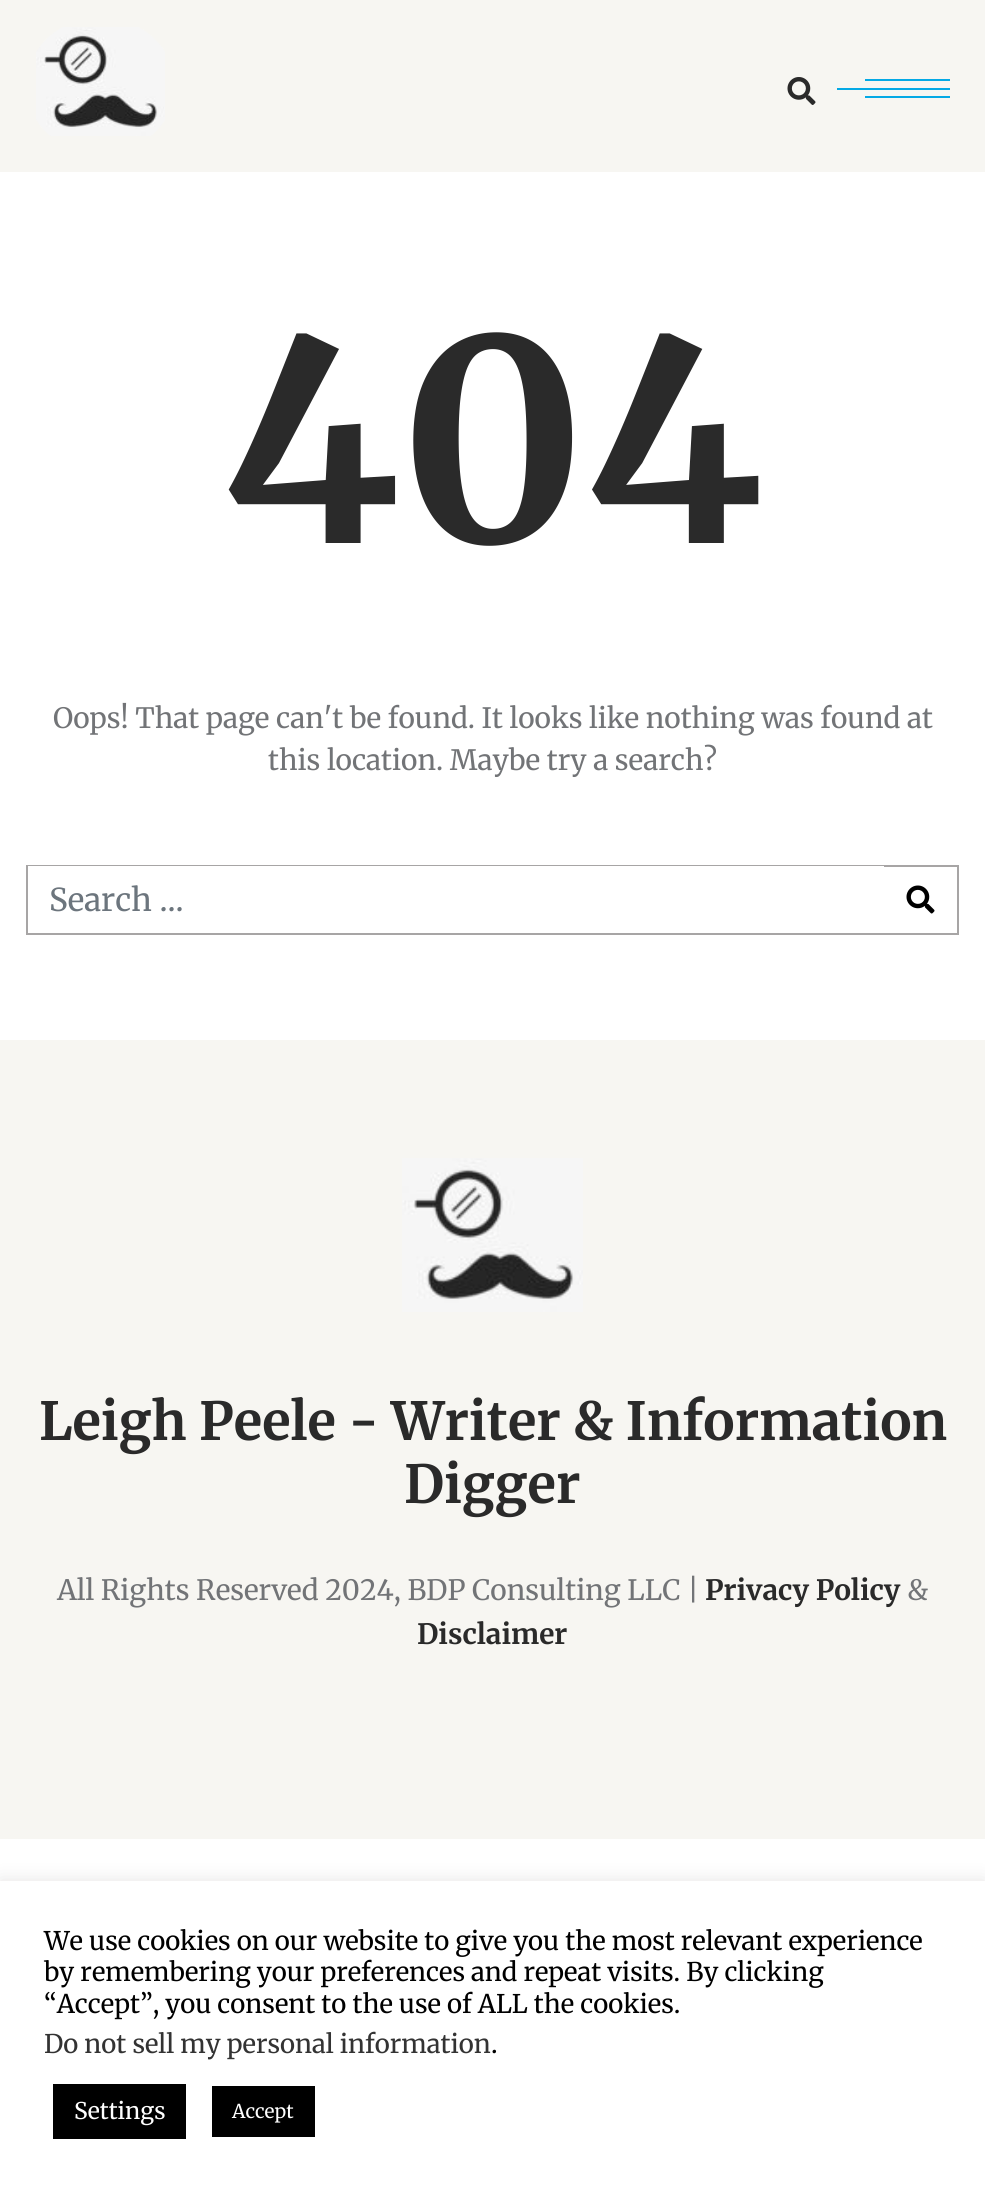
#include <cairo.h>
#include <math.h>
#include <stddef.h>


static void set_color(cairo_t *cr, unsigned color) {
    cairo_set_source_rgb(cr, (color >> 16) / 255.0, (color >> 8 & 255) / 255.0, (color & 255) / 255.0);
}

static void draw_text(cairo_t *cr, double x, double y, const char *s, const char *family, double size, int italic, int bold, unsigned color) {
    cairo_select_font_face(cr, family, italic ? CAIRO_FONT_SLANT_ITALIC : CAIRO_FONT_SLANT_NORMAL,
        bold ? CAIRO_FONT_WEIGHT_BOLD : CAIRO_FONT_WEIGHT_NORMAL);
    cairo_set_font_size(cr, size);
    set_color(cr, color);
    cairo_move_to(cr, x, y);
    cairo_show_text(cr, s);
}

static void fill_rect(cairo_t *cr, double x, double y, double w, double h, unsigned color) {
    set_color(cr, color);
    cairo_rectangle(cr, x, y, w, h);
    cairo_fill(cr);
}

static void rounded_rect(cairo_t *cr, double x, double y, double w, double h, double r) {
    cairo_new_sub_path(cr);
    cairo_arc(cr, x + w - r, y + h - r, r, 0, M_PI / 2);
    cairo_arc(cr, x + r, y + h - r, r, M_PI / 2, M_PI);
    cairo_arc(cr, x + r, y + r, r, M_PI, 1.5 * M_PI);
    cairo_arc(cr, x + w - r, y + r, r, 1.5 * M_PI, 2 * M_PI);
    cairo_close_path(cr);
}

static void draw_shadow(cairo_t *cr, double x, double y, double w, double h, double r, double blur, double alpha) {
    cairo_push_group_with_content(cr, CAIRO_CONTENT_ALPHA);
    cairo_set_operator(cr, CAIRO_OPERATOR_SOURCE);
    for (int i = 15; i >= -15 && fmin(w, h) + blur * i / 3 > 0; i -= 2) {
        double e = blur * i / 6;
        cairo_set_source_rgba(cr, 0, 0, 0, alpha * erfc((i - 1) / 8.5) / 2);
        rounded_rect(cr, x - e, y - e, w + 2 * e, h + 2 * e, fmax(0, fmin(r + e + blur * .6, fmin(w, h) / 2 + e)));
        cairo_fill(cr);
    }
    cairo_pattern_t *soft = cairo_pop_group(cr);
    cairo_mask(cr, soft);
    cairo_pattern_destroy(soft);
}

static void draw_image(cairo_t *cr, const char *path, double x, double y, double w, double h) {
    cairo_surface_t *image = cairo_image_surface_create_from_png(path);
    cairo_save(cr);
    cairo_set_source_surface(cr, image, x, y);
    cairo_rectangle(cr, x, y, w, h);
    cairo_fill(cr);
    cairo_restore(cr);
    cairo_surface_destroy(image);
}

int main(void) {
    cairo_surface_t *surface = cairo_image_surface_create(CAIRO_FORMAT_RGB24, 985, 2189);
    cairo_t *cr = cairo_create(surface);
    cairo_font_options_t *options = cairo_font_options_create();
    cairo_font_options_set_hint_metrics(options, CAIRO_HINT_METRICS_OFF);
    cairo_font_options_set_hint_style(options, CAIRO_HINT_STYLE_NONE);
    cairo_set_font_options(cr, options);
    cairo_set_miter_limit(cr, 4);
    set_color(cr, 0xFFFFFF);
    cairo_paint(cr);
    fill_rect(cr, 0, 0, 985, 172, 0xF7F6F2);
    draw_image(cr, "assets/img1.png", 36, 27, 129, 109);
    draw_image(cr, "assets/img2.png", 787, 77, 29, 28);
    fill_rect(cr, 865, 79, 85, 2, 0x04A9E5);
    fill_rect(cr, 837, 88, 113, 2, 0x04A9E5);
    fill_rect(cr, 865, 96, 85, 2, 0x04A9E5);
    draw_text(cr, 222, 543, "404", "Merriweather", 280, 0, 1, 0x2A2A2A);
    draw_text(cr, 53, 728, "Oops! That page can't be found. It looks like nothing was found at", "Merriweather", 28, 0, 0, 0x727477);
    draw_text(cr, 268, 770, "this location. Maybe try a search?", "Merriweather", 28, 0, 0, 0x727477);
    cairo_rectangle(cr, 27, 866, 931, 68);
    set_color(cr, 0xA7A5A5);
    cairo_stroke(cr);
    fill_rect(cr, 28, 866, 856, 1, 0xFFFFFF);
    draw_text(cr, 49, 911, "Search ...", "Merriweather", 31.5, 0, 0, 0x6C757D);
    draw_image(cr, "assets/img3.png", 906, 885, 29, 29);
    fill_rect(cr, 0, 1040, 985, 799, 0xF7F6F2);
    draw_image(cr, "assets/img4.png", 402, 1158, 181, 154);
    draw_text(cr, 39, 1440, "Leigh Peele - Writer & Information", "Merriweather", 52.5, 0, 1, 0x2A2A2A);
    draw_text(cr, 404, 1503, "Digger", "Merriweather", 52.5, 0, 1, 0x2A2A2A);
    draw_text(cr, 57, 1600, "All Rights Reserved 2024, BDP Consulting LLC |", "Merriweather", 28, 0, 0, 0x727477);
    draw_text(cr, 705, 1600, "Privacy Policy", "Merriweather", 28, 0, 1, 0x2A2A2A);
    draw_text(cr, 907, 1600, "&", "Merriweather", 28, 0, 0, 0x727477);
    draw_text(cr, 417, 1644, "Disclaimer", "Merriweather", 28, 0, 1, 0x2A2A2A);
    set_color(cr, 0xACABAB);
    draw_shadow(cr, 0, 1880, 985, 308, 0, 9, 0.3);
    fill_rect(cr, 0, 1881, 985, 308, 0xFFFFFF);
    draw_text(cr, 44, 1950, "We use cookies on our website to give you the most relevant experience", "Merriweather", 25.65, 0, 0, 0x000000);
    draw_text(cr, 44, 1981, "by remembering your preferences and repeat visits. By clicking", "Merriweather", 25.65, 0, 0, 0x000000);
    draw_text(cr, 44, 2013, "“Accept”, you consent to the use of ALL the cookies.", "Merriweather", 25.65, 0, 0, 0x000000);
    draw_text(cr, 44, 2053, "Do not sell my personal information", "Merriweather", 25.65, 0, 0, 0x333333);
    draw_text(cr, 491, 2053, ".", "Merriweather", 25.65, 0, 0, 0x000000);
    fill_rect(cr, 53, 2084, 133, 55, 0x000000);
    draw_text(cr, 74, 2119, "Settings", "Merriweather", 23, 0, 0, 0xFFFFFF);
    fill_rect(cr, 212, 2086, 103, 51, 0x000000);
    draw_text(cr, 232, 2118, "Accept", "Merriweather", 19, 0, 0, 0xFFFFFF);
    cairo_surface_write_to_png(surface, "output.png");
    cairo_font_options_destroy(options);
    cairo_destroy(cr);
    cairo_surface_destroy(surface);
    return 0;
}
